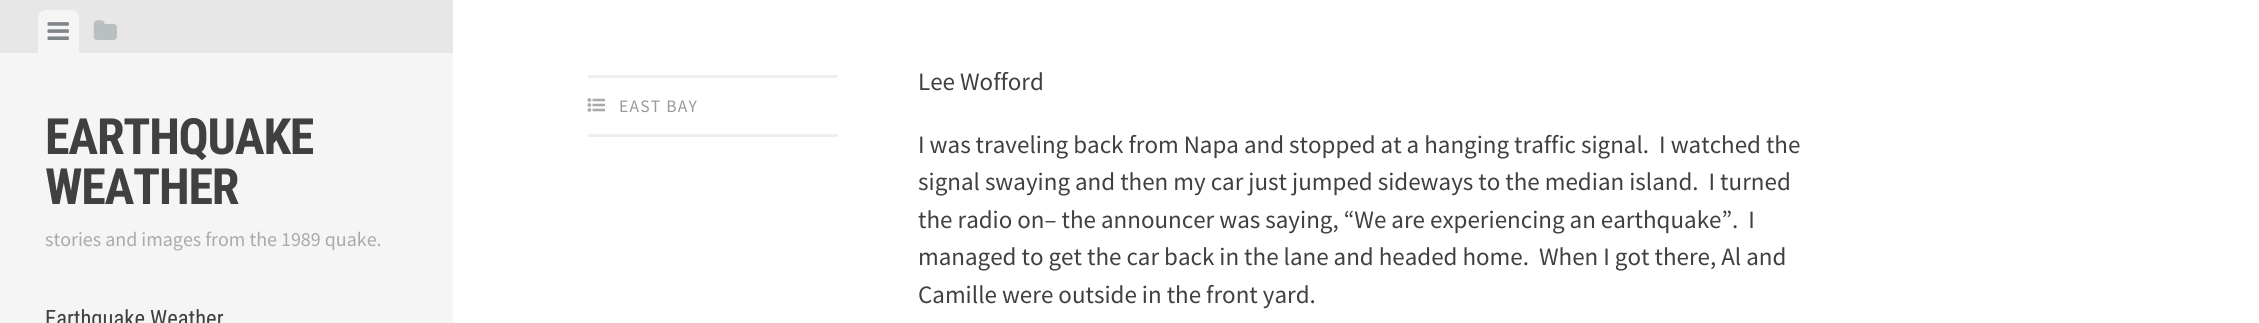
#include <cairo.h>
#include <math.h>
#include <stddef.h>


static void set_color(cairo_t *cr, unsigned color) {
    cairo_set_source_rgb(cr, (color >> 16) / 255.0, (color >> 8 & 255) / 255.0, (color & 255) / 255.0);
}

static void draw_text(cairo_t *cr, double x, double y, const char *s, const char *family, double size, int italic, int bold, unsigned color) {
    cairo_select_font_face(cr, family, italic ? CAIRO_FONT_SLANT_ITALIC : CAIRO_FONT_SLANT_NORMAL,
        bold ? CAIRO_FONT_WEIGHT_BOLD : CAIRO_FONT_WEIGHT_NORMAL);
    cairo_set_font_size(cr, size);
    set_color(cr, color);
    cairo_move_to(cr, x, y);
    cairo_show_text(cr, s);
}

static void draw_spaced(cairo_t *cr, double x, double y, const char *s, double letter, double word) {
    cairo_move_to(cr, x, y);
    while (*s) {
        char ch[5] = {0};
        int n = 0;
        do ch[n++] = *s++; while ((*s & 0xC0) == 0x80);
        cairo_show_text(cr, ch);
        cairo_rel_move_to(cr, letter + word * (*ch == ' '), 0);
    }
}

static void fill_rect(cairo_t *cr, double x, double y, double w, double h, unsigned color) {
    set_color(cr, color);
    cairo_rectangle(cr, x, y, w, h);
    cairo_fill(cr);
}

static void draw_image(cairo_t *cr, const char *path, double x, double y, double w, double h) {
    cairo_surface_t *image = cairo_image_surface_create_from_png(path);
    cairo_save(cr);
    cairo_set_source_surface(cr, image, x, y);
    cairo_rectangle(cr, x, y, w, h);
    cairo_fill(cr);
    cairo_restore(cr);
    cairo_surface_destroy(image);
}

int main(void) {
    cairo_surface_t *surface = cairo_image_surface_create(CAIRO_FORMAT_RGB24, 2259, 323);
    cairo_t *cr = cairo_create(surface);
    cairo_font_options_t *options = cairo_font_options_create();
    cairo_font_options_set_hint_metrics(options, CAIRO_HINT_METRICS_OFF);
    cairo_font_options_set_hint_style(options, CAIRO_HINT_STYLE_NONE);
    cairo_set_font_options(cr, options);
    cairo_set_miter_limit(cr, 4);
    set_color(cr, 0xFFFFFF);
    cairo_paint(cr);
    fill_rect(cr, 0, 53, 453, 270, 0xF5F5F5);
    fill_rect(cr, 0, 0, 453, 53, 0xE7E7E7);
    set_color(cr, 0xF5F5F5);
    cairo_new_path(cr);
    cairo_move_to(cr, 46, 10);
    cairo_line_to(cr, 71, 10);
    cairo_curve_to(cr, 75.5, 10, 79, 13.5, 79, 18);
    cairo_line_to(cr, 79, 53);
    cairo_line_to(cr, 38, 53);
    cairo_line_to(cr, 38, 18);
    cairo_curve_to(cr, 38, 13.5, 41.5, 10, 46, 10);
    cairo_close_path(cr);
    cairo_fill(cr);
    draw_image(cr, "assets/img1.png", 47, 22, 22, 18);
    draw_image(cr, "assets/img2.png", 93, 20, 24, 20);
    cairo_select_font_face(cr, "Roboto Condensed", CAIRO_FONT_SLANT_NORMAL, CAIRO_FONT_WEIGHT_BOLD);
    cairo_set_font_size(cr, 50);
    set_color(cr, 0x404040);
    draw_spaced(cr, 45, 154, "EARTHQUAKE", -1.25, 0);
    draw_spaced(cr, 45, 204, "WEATHER", -1.25, 0);
    draw_text(cr, 45, 246, "stories and images from the 1989 quake.", "Source Sans Pro", 20, 0, 0, 0xAAAAAA);
    draw_text(cr, 45, 326, "Earthquake Weather", "Roboto Condensed", 22.5, 0, 0, 0x404040);
    fill_rect(cr, 588, 75, 250, 3, 0xEEEEEE);
    fill_rect(cr, 588, 134, 250, 3, 0xEEEEEE);
    draw_image(cr, "assets/img3.png", 587, 98, 18, 14);
    cairo_select_font_face(cr, "Source Sans Pro", CAIRO_FONT_SLANT_NORMAL, CAIRO_FONT_WEIGHT_NORMAL);
    cairo_set_font_size(cr, 17.5);
    set_color(cr, 0x999999);
    draw_spaced(cr, 619, 112, "EAST BAY", 1.25, 0);
    draw_text(cr, 918, 90, "Lee Wofford", "Source Sans Pro", 25, 0, 0, 0x404040);
    draw_text(cr, 918, 153, "I was traveling back from Napa and stopped at a hanging traffic signal.  I watched the", "Source Sans Pro", 25, 0, 0, 0x404040);
    draw_text(cr, 918, 190, "signal swaying and then my car just jumped sideways to the median island.  I turned", "Source Sans Pro", 25, 0, 0, 0x404040);
    draw_text(cr, 918, 228, "the radio on– the announcer was saying, “We are experiencing an earthquake”.  I", "Source Sans Pro", 25, 0, 0, 0x404040);
    draw_text(cr, 918, 265, "managed to get the car back in the lane and headed home.  When I got there, Al and", "Source Sans Pro", 25, 0, 0, 0x404040);
    draw_text(cr, 918, 303, "Camille were outside in the front yard.", "Source Sans Pro", 25, 0, 0, 0x404040);
    cairo_surface_write_to_png(surface, "output.png");
    cairo_font_options_destroy(options);
    cairo_destroy(cr);
    cairo_surface_destroy(surface);
    return 0;
}
